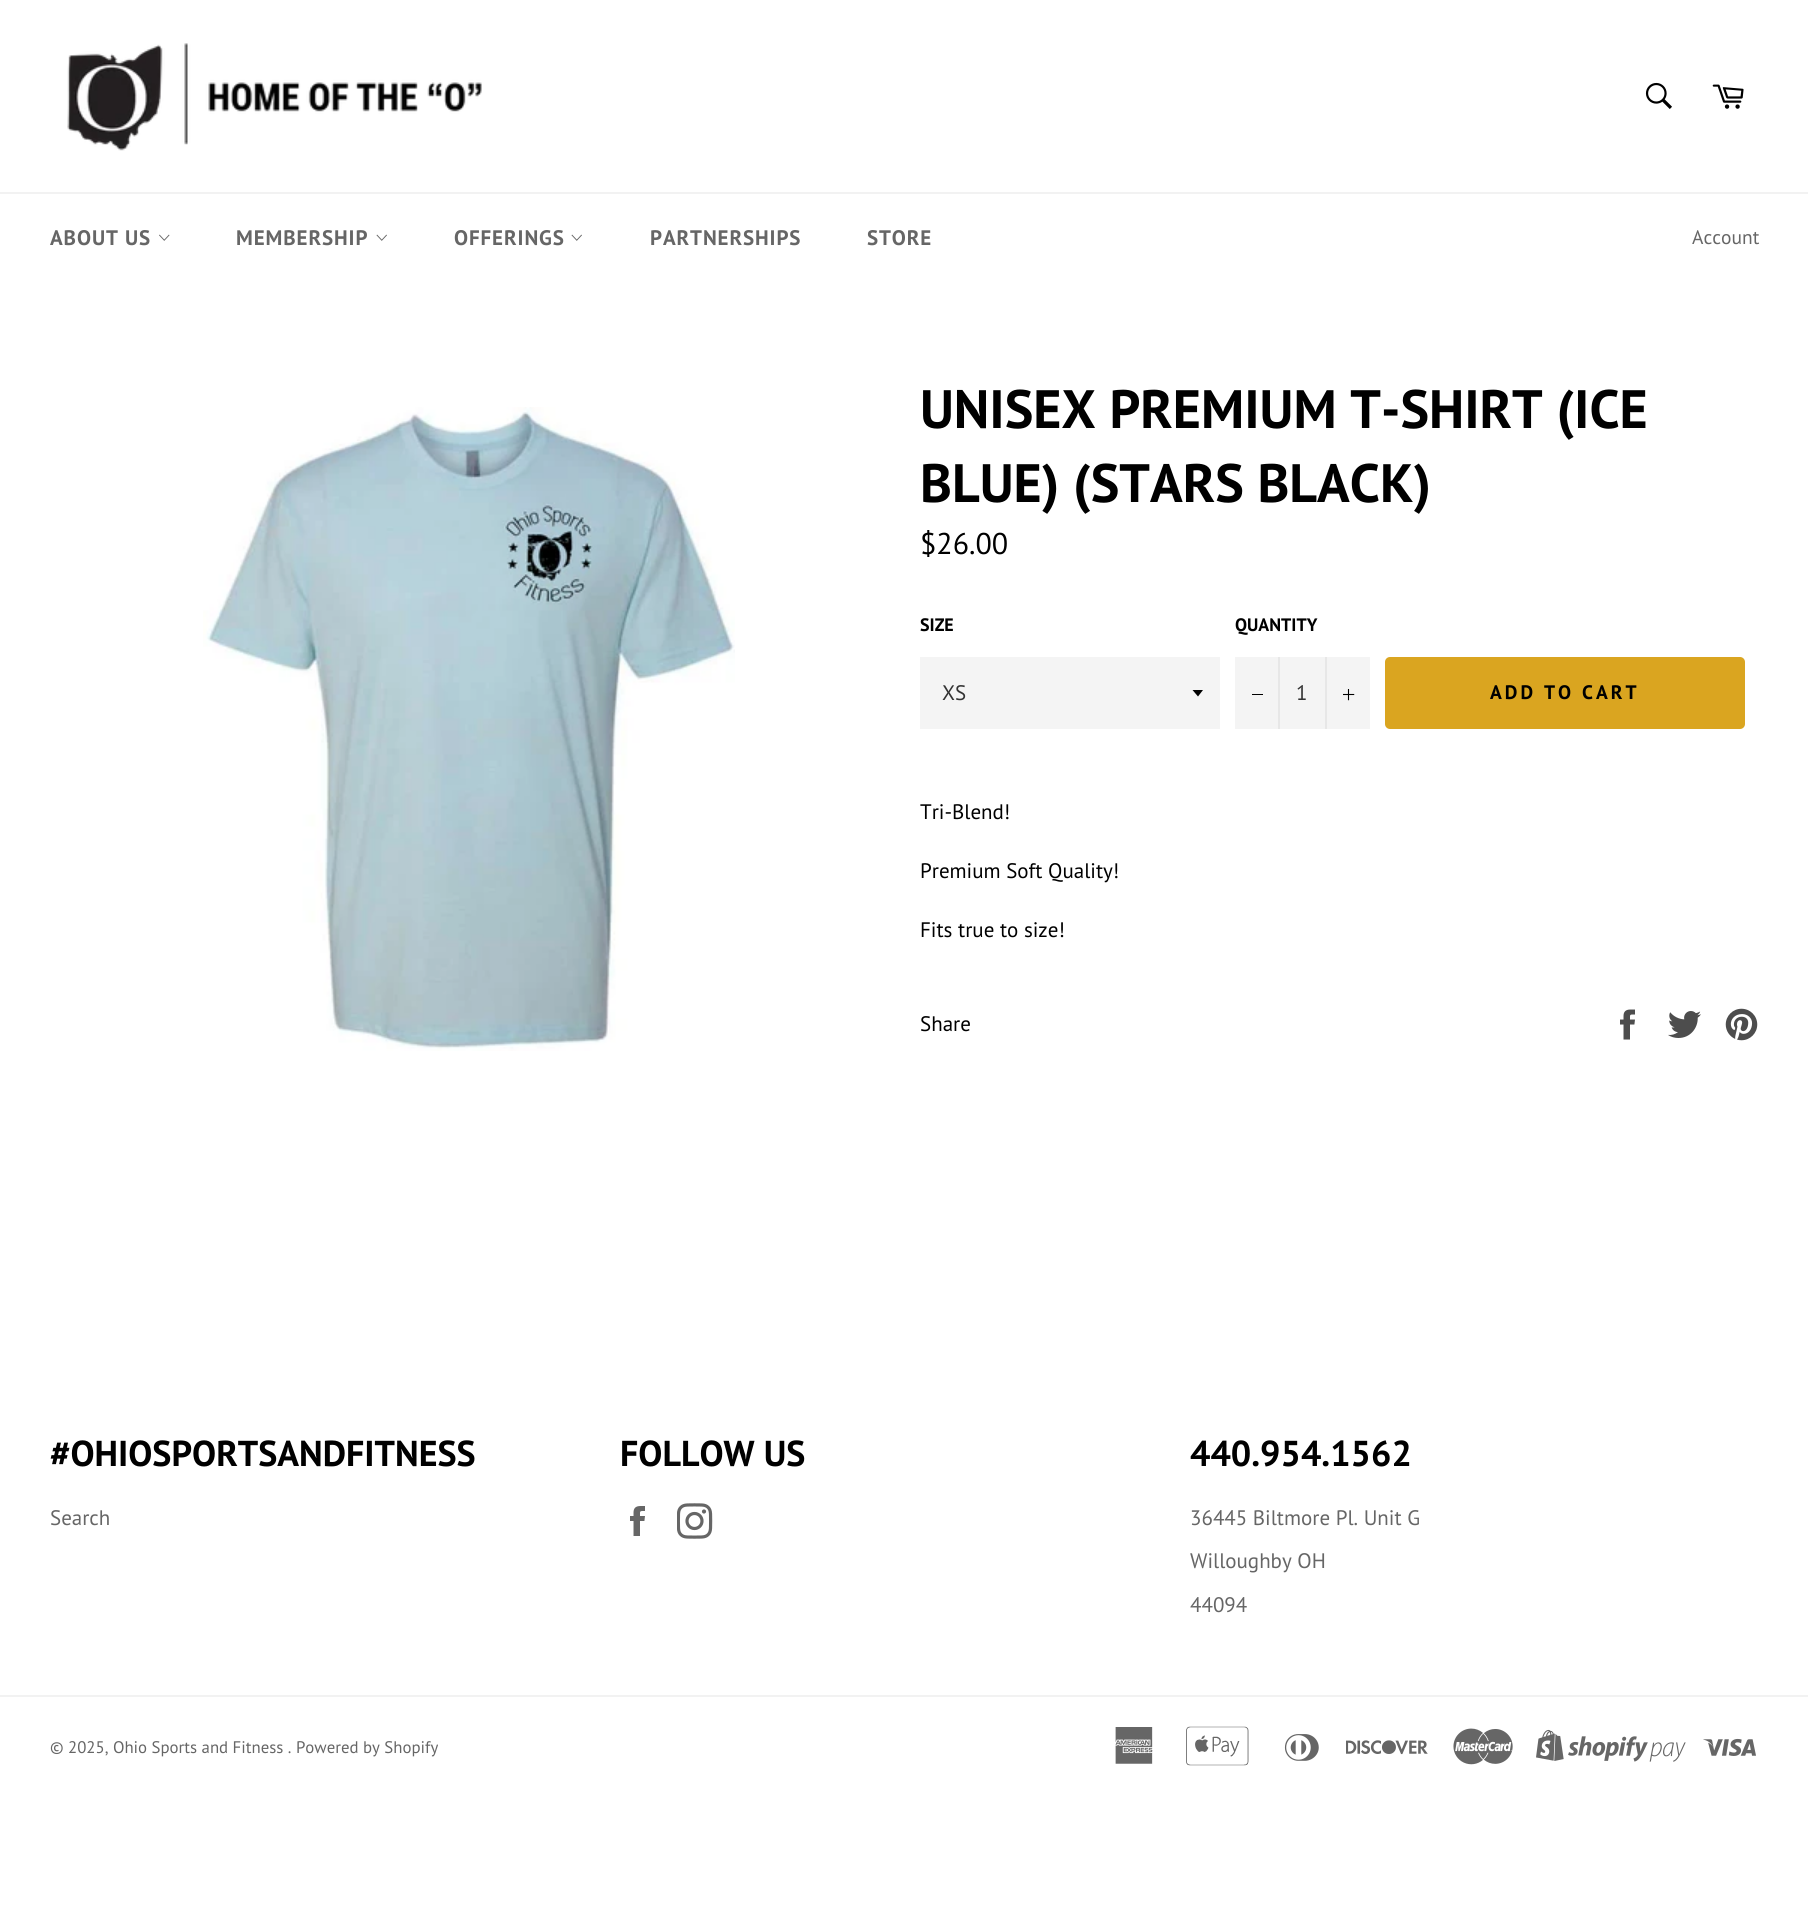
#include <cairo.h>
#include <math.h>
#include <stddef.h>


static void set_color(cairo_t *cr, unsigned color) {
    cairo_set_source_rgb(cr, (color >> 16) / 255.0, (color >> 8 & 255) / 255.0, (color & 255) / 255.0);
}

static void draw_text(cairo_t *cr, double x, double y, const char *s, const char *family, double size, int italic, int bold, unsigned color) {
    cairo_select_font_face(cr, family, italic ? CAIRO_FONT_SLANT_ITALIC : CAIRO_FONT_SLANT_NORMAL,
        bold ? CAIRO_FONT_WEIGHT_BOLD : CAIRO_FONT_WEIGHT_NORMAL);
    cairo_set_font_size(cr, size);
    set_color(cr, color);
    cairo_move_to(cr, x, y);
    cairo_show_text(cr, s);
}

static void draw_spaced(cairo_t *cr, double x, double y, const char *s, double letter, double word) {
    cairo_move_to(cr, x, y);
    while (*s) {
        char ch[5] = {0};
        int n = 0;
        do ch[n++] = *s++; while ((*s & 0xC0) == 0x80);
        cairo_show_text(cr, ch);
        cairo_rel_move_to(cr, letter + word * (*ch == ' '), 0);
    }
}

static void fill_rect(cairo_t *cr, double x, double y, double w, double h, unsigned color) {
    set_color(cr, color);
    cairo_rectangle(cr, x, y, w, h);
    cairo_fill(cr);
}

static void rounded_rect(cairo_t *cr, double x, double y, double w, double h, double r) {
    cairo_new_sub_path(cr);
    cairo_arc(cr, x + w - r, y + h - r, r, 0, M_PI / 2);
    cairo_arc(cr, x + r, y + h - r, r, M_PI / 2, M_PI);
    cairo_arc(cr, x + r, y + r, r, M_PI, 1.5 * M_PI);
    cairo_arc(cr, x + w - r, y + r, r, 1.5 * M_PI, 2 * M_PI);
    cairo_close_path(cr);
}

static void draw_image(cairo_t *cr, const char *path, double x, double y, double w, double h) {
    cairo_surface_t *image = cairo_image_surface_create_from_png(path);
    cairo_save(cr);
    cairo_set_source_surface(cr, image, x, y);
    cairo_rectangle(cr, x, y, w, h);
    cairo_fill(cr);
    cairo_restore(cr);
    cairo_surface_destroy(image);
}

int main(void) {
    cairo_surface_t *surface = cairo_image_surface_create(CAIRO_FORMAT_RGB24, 1808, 1930);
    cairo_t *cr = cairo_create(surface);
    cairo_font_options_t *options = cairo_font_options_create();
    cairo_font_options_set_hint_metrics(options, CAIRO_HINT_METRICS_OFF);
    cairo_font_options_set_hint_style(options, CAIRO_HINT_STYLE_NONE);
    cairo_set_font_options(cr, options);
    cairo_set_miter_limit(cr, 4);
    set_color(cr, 0xFFFFFF);
    cairo_paint(cr);
    draw_image(cr, "assets/img1.png", 67, 43, 415, 108);
    draw_image(cr, "assets/img2.png", 1645, 82, 27, 27);
    draw_image(cr, "assets/img3.png", 1712, 84, 32, 25);
    fill_rect(cr, 0, 192, 1808, 2, 0xF2F2F2);
    cairo_select_font_face(cr, "PT Sans", CAIRO_FONT_SLANT_NORMAL, CAIRO_FONT_WEIGHT_BOLD);
    cairo_set_font_size(cr, 21);
    set_color(cr, 0x666666);
    draw_spaced(cr, 50, 245, "ABOUT US", 0.9, 0);
    draw_image(cr, "assets/img4.png", 159, 234, 11, 7);
    draw_spaced(cr, 236, 245, "MEMBERSHIP", 0.9, 0);
    draw_image(cr, "assets/img5.png", 376, 234, 11, 7);
    draw_spaced(cr, 454, 245, "OFFERINGS", 0.9, 0);
    draw_image(cr, "assets/img5.png", 571, 234, 11, 7);
    draw_spaced(cr, 650, 245, "PARTNERSHIPS", 0.9, 0);
    draw_spaced(cr, 867, 245, "STORE", 0.9, 0);
    draw_text(cr, 1692, 244, "Account", "PT Sans", 19.5, 0, 0, 0x666666);
    draw_image(cr, "assets/img6.png", 203, 407, 532, 644);
    draw_text(cr, 920, 428, "UNISEX PREMIUM T-SHIRT (ICE", "PT Sans", 54, 0, 1, 0x000000);
    draw_text(cr, 920, 502, "BLUE) (STARS BLACK)", "PT Sans", 54, 0, 1, 0x000000);
    draw_text(cr, 920, 554, "$26.00", "PT Sans", 30, 0, 0, 0x000000);
    draw_text(cr, 920, 631, "SIZE", "PT Sans", 18, 0, 1, 0x000000);
    fill_rect(cr, 920, 657, 300, 72, 0xF4F4F4);
    set_color(cr, 0x000000);
    cairo_new_path(cr);
    cairo_move_to(cr, 1192.5, 690);
    cairo_line_to(cr, 1198, 696.5);
    cairo_line_to(cr, 1203, 690);
    cairo_close_path(cr);
    cairo_fill(cr);
    draw_text(cr, 942, 700, "XS", "PT Sans", 21, 0, 0, 0x333333);
    draw_text(cr, 1235, 631, "QUANTITY", "PT Sans", 18, 0, 1, 0x000000);
    fill_rect(cr, 1235, 657, 135, 72, 0xF4F4F4);
    fill_rect(cr, 1278, 657, 2, 72, 0xE7E7E7);
    fill_rect(cr, 1252, 694, 11, 1, 0x000000);
    draw_text(cr, 1296, 700, "1", "PT Sans", 21, 0, 0, 0x333333);
    fill_rect(cr, 1325, 657, 2, 72, 0xE7E7E7);
    draw_image(cr, "assets/img7.png", 1343, 689, 12, 12);
    set_color(cr, 0xDAA520);
    rounded_rect(cr, 1385, 657, 360, 72, 5);
    cairo_fill(cr);
    cairo_select_font_face(cr, "PT Sans", CAIRO_FONT_SLANT_NORMAL, CAIRO_FONT_WEIGHT_BOLD);
    cairo_set_font_size(cr, 19.5);
    set_color(cr, 0x000000);
    draw_spaced(cr, 1490, 699, "ADD TO CART", 3, 0);
    draw_text(cr, 920, 819, "Tri-Blend!", "PT Sans", 21, 0, 0, 0x000000);
    draw_text(cr, 920, 878, "Premium Soft Quality!", "PT Sans", 21, 0, 0, 0x000000);
    draw_text(cr, 920, 937, "Fits true to size!", "PT Sans", 21, 0, 0, 0x000000);
    draw_text(cr, 920, 1031, "Share", "PT Sans", 21, 0, 0, 0x000000);
    draw_image(cr, "assets/img8.png", 1620, 1009, 15, 31);
    draw_image(cr, "assets/img9.png", 1668, 1011, 33, 27);
    draw_image(cr, "assets/img10.png", 1725, 1008, 33, 33);
    draw_text(cr, 50, 1466, "#OHIOSPORTSANDFITNESS", "PT Sans", 36, 0, 1, 0x000000);
    draw_text(cr, 50, 1525, "Search", "PT Sans", 21, 0, 0, 0x666666);
    draw_text(cr, 620, 1466, "FOLLOW US", "PT Sans", 36, 0, 1, 0x000000);
    draw_image(cr, "assets/img11.png", 630, 1506, 15, 30);
    draw_image(cr, "assets/img12.png", 677, 1503, 36, 36);
    draw_text(cr, 1190, 1466, "440.954.1562", "PT Sans", 36, 0, 1, 0x000000);
    draw_text(cr, 1190, 1525, "36445 Biltmore Pl. Unit G", "PT Sans", 21, 0, 0, 0x666666);
    draw_text(cr, 1190, 1568, "Willoughby OH", "PT Sans", 21, 0, 0, 0x666666);
    draw_text(cr, 1190, 1612, "44094", "PT Sans", 21, 0, 0, 0x666666);
    fill_rect(cr, 0, 1695, 1808, 2, 0xF2F2F2);
    draw_text(cr, 50, 1753, "© 2025, Ohio Sports and Fitness . Powered by Shopify", "PT Sans", 16.8, 0, 0, 0x666666);
    draw_image(cr, "assets/img13.png", 1115, 1727, 38, 37);
    draw_image(cr, "assets/img14.png", 1186, 1726, 63, 40);
    draw_image(cr, "assets/img15.png", 1284, 1734, 35, 27);
    draw_image(cr, "assets/img16.png", 1346, 1740, 82, 15);
    draw_image(cr, "assets/img17.png", 1453, 1728, 60, 37);
    draw_image(cr, "assets/img18.png", 1536, 1729, 150, 33);
    draw_image(cr, "assets/img19.png", 1703, 1738, 53, 18);
    cairo_surface_write_to_png(surface, "output.png");
    cairo_font_options_destroy(options);
    cairo_destroy(cr);
    cairo_surface_destroy(surface);
    return 0;
}
